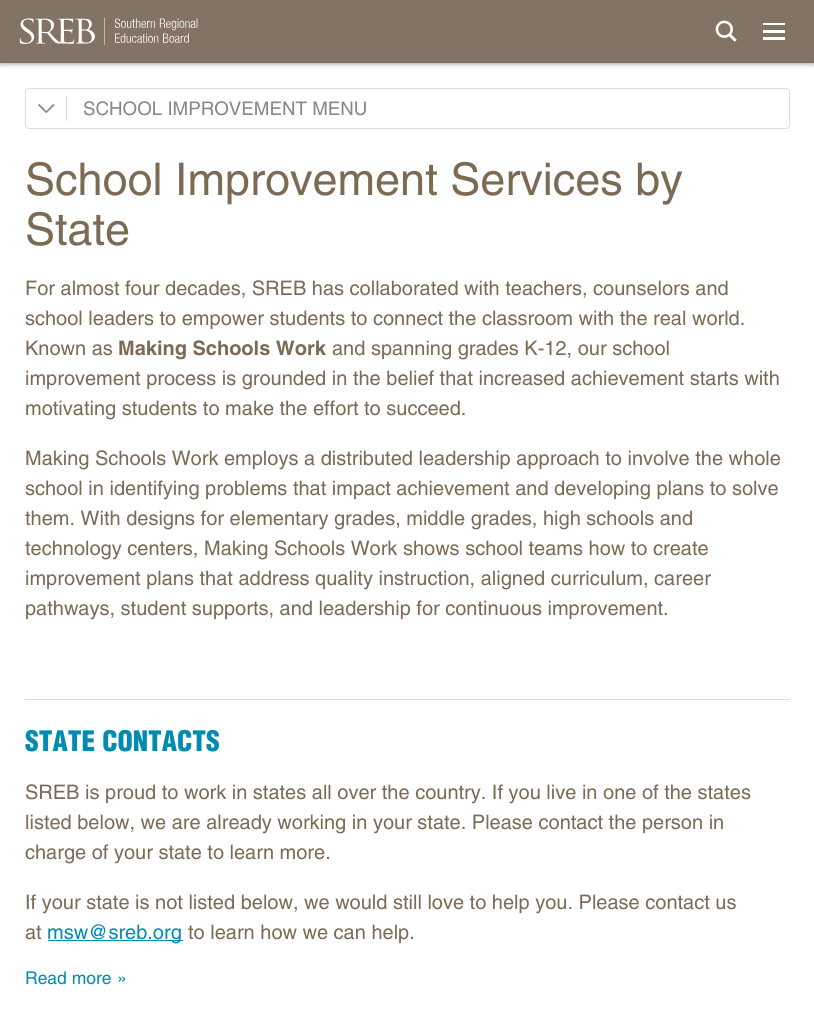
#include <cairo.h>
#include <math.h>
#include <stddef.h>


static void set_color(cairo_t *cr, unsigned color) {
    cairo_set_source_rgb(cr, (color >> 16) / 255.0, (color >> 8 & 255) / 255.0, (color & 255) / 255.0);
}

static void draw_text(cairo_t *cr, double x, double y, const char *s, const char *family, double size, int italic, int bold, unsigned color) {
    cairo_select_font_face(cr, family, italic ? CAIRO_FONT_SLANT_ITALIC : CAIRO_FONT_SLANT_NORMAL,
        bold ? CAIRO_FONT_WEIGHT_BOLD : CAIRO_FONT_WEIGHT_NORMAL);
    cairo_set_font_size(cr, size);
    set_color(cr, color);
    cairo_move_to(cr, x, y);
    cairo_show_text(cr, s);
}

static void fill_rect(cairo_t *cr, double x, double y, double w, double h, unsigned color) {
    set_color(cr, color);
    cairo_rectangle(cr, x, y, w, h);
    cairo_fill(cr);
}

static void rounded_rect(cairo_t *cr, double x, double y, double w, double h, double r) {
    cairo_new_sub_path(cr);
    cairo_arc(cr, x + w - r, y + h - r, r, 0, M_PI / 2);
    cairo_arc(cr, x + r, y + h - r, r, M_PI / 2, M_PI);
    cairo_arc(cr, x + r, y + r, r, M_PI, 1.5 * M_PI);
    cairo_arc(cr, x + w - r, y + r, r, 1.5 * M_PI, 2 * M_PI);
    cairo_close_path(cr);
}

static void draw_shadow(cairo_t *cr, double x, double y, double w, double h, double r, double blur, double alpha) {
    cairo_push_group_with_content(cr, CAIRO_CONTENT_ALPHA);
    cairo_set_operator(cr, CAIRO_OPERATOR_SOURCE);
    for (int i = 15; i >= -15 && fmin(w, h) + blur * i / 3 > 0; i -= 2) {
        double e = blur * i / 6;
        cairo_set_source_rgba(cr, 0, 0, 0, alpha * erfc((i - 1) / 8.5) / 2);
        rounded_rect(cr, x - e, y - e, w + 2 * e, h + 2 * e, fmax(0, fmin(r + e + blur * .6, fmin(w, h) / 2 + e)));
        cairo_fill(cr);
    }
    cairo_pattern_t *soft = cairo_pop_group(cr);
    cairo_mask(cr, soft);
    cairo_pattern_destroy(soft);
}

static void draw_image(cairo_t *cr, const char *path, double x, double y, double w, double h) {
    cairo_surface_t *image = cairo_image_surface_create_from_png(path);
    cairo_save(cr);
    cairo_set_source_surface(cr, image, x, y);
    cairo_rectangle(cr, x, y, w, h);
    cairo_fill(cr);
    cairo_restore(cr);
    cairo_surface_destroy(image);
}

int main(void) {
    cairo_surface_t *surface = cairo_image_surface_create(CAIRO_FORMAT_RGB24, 814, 1014);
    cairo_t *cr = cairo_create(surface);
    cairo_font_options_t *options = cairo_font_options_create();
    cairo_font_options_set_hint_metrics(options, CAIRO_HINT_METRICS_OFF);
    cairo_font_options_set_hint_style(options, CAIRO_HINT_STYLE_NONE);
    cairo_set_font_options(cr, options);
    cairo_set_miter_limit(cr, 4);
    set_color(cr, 0xFFFFFF);
    cairo_paint(cr);
    set_color(cr, 0x000000);
    draw_shadow(cr, 0, 0, 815, 63, 0, 3, 0.5);
    fill_rect(cr, 0, 0, 814, 63, 0x827364);
    draw_image(cr, "assets/img1.png", 19, 17, 179, 28);
    draw_image(cr, "assets/img2.png", 715, 20, 22, 22);
    fill_rect(cr, 763, 23, 22, 2, 0xFFFFFF);
    fill_rect(cr, 763, 30, 22, 3, 0xFFFFFF);
    fill_rect(cr, 763, 37, 22, 3, 0xFFFFFF);
    rounded_rect(cr, 25.5, 88.5, 764, 40, 3.5);
    set_color(cr, 0xDDDDDD);
    cairo_set_line_width(cr, 1);
    cairo_stroke(cr);
    fill_rect(cr, 66, 96, 1, 25, 0xDDDDDD);
    draw_image(cr, "assets/img3.png", 38, 104, 17, 10);
    draw_text(cr, 83, 115, "SCHOOL IMPROVEMENT MENU", "Helvetica", 18.75, 0, 0, 0x888888);
    draw_text(cr, 25, 195, "School Improvement Services by", "Helvetica", 45, 0, 0, 0x7C6A55);
    draw_text(cr, 25, 245, "State", "Helvetica", 45, 0, 0, 0x7C6A55);
    draw_text(cr, 25, 295, "For almost four decades, SREB has collaborated with teachers, counselors and", "Helvetica", 20, 0, 0, 0x7C6A55);
    draw_text(cr, 25, 325, "school leaders to empower students to connect the classroom with the real world.", "Helvetica", 20, 0, 0, 0x7C6A55);
    draw_text(cr, 25, 355, "Known as", "Helvetica", 20, 0, 0, 0x7C6A55);
    draw_text(cr, 118, 355, "Making Schools Work", "Helvetica", 20, 0, 1, 0x7C6A55);
    draw_text(cr, 332, 355, "and spanning grades K-12, our school", "Helvetica", 20, 0, 0, 0x7C6A55);
    draw_text(cr, 25, 385, "improvement process is grounded in the belief that increased achievement starts with", "Helvetica", 20, 0, 0, 0x7C6A55);
    draw_text(cr, 25, 415, "motivating students to make the effort to succeed.", "Helvetica", 20, 0, 0, 0x7C6A55);
    draw_text(cr, 25, 465, "Making Schools Work employs a distributed leadership approach to involve the whole", "Helvetica", 20, 0, 0, 0x7C6A55);
    draw_text(cr, 25, 495, "school in identifying problems that impact achievement and developing plans to solve", "Helvetica", 20, 0, 0, 0x7C6A55);
    draw_text(cr, 25, 525, "them. With designs for elementary grades, middle grades, high schools and", "Helvetica", 20, 0, 0, 0x7C6A55);
    draw_text(cr, 25, 555, "technology centers, Making Schools Work shows school teams how to create", "Helvetica", 20, 0, 0, 0x7C6A55);
    draw_text(cr, 25, 585, "improvement plans that address quality instruction, aligned curriculum, career", "Helvetica", 20, 0, 0, 0x7C6A55);
    draw_text(cr, 25, 615, "pathways, student supports, and leadership for continuous improvement.", "Helvetica", 20, 0, 0, 0x7C6A55);
    fill_rect(cr, 25, 699, 765, 1, 0xDDDDDD);
    draw_text(cr, 25, 751, "STATE CONTACTS", "Helvetica Black", 27.5, 0, 0, 0x008BB0);
    draw_text(cr, 25, 799, "SREB is proud to work in states all over the country. If you live in one of the states", "Helvetica", 20, 0, 0, 0x7C6A55);
    draw_text(cr, 25, 829, "listed below, we are already working in your state. Please contact the person in", "Helvetica", 20, 0, 0, 0x7C6A55);
    draw_text(cr, 25, 859, "charge of your state to learn more.", "Helvetica", 20, 0, 0, 0x7C6A55);
    draw_text(cr, 25, 909, "If your state is not listed below, we would still love to help you. Please contact us", "Helvetica", 20, 0, 0, 0x7C6A55);
    draw_text(cr, 25, 939, "at", "Helvetica", 20, 0, 0, 0x7C6A55);
    fill_rect(cr, 48, 940, 135, 1, 0x008BB0);
    draw_text(cr, 47, 939, "msw@sreb.org", "Helvetica", 20, 0, 0, 0x008BB0);
    draw_text(cr, 188, 939, "to learn how we can help.", "Helvetica", 20, 0, 0, 0x7C6A55);
    draw_text(cr, 25, 984, "Read more", "Helvetica", 17.5, 0, 0, 0x008BB0);
    draw_text(cr, 117, 984, "»", "Helvetica", 17.5, 0, 0, 0x008BB0);
    cairo_surface_write_to_png(surface, "output.png");
    cairo_font_options_destroy(options);
    cairo_destroy(cr);
    cairo_surface_destroy(surface);
    return 0;
}
